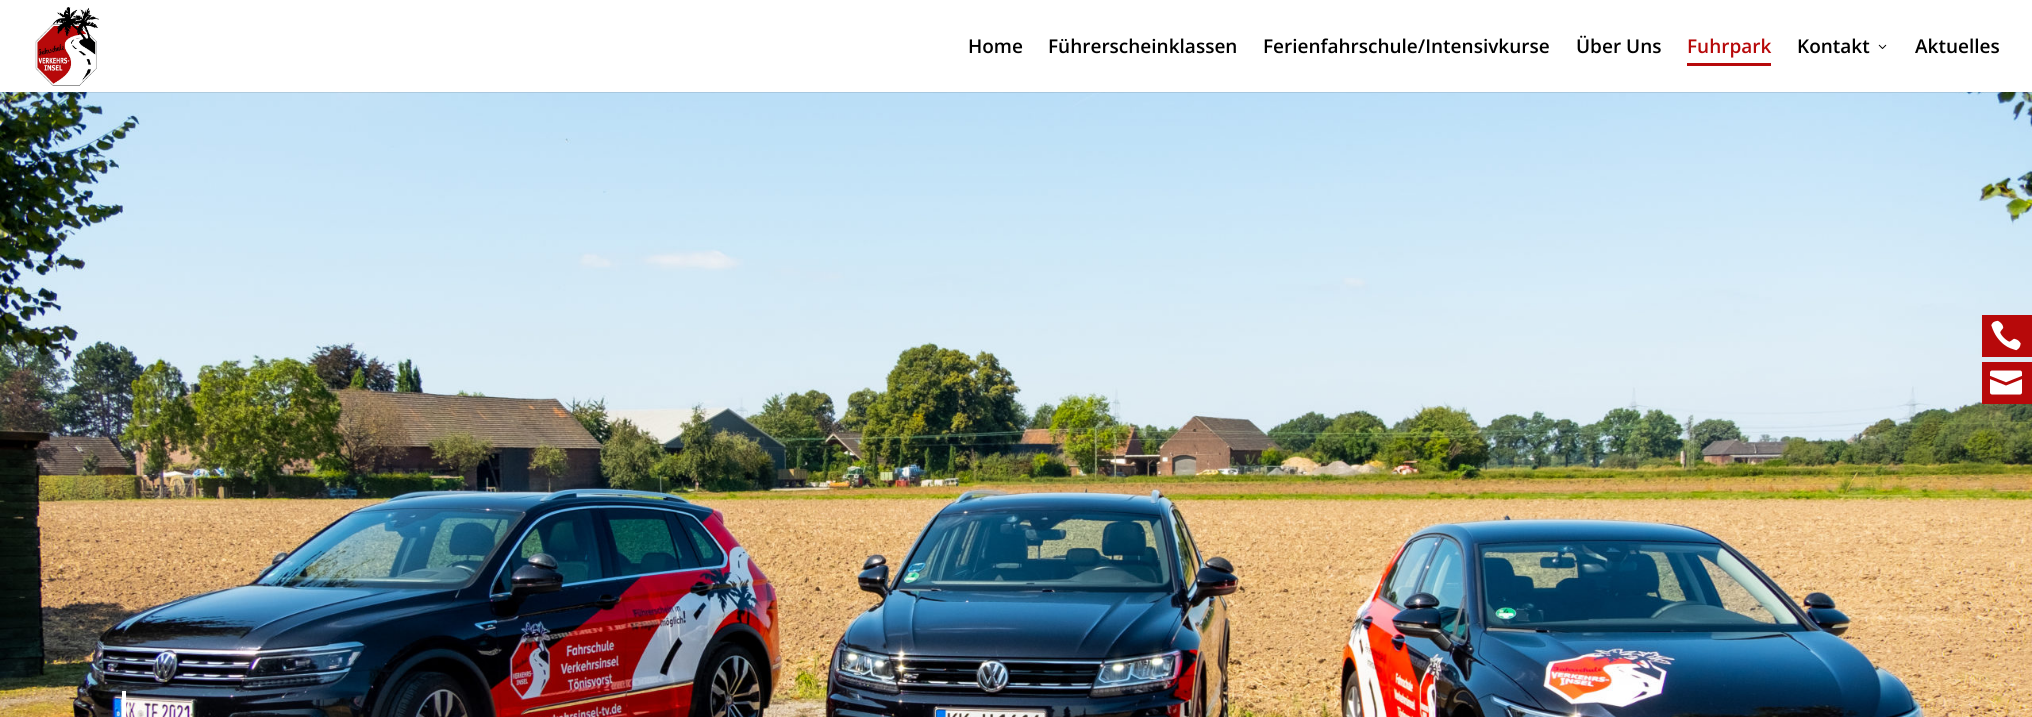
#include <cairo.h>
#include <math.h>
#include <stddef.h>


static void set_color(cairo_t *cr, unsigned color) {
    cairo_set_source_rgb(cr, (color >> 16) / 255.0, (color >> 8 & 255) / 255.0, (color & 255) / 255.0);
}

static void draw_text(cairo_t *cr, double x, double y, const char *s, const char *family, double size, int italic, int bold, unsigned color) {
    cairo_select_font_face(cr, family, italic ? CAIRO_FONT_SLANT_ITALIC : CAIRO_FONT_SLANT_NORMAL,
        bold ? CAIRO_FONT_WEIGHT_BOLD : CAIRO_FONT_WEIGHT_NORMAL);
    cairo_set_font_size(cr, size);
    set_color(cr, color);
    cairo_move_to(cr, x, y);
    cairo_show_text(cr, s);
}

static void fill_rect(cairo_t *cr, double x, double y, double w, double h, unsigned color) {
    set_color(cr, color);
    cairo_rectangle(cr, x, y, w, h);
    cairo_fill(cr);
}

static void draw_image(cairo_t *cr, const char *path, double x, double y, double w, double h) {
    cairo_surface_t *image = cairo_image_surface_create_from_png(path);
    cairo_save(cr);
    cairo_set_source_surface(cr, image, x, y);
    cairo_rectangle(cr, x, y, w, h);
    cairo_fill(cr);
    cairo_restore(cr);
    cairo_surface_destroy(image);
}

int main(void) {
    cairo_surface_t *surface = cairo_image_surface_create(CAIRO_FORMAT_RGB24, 2032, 717);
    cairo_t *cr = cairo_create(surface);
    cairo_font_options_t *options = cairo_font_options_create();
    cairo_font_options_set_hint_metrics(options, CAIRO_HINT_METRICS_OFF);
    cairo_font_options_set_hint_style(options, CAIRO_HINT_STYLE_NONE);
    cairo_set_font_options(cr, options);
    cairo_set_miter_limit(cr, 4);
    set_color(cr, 0xFFFFFF);
    cairo_paint(cr);
    draw_image(cr, "assets/img3.png", 0, 92, 2032, 625);
    cairo_set_source_rgba(cr, 0, 0, 0, 0.1);
    cairo_rectangle(cr, 0, 92, 2032, 1);
    cairo_fill(cr);
    draw_image(cr, "assets/img1.png", 35, 7, 64, 79);
    draw_text(cr, 968, 53, "Home", "Open Sans SemiBold", 19, 0, 0, 0x000000);
    draw_text(cr, 1048, 53, "Führerscheinklassen", "Open Sans SemiBold", 19, 0, 0, 0x000000);
    draw_text(cr, 1263, 53, "Ferienfahrschule/Intensivkurse", "Open Sans SemiBold", 19, 0, 0, 0x000000);
    draw_text(cr, 1576, 53, "Über Uns", "Open Sans SemiBold", 19, 0, 0, 0x000000);
    draw_text(cr, 1687, 53, "Fuhrpark", "Open Sans SemiBold", 19, 0, 0, 0xB7090A);
    fill_rect(cr, 1687, 63, 84, 3, 0xB7090A);
    draw_text(cr, 1797, 53, "Kontakt", "Open Sans SemiBold", 19, 0, 0, 0x000000);
    draw_image(cr, "assets/img2.png", 1878, 44, 9, 5);
    draw_text(cr, 1915, 53, "Aktuelles", "Open Sans SemiBold", 19, 0, 0, 0x000000);
    fill_rect(cr, 122, 691, 4, 26, 0xFFFFFF);
    fill_rect(cr, 1982, 315, 50, 42, 0xB7090A);
    draw_image(cr, "assets/img4.png", 1991, 320, 30, 31);
    fill_rect(cr, 1982, 362, 50, 42, 0xB7090A);
    draw_image(cr, "assets/img5.png", 1990, 370, 32, 25);
    cairo_surface_write_to_png(surface, "output.png");
    cairo_font_options_destroy(options);
    cairo_destroy(cr);
    cairo_surface_destroy(surface);
    return 0;
}
